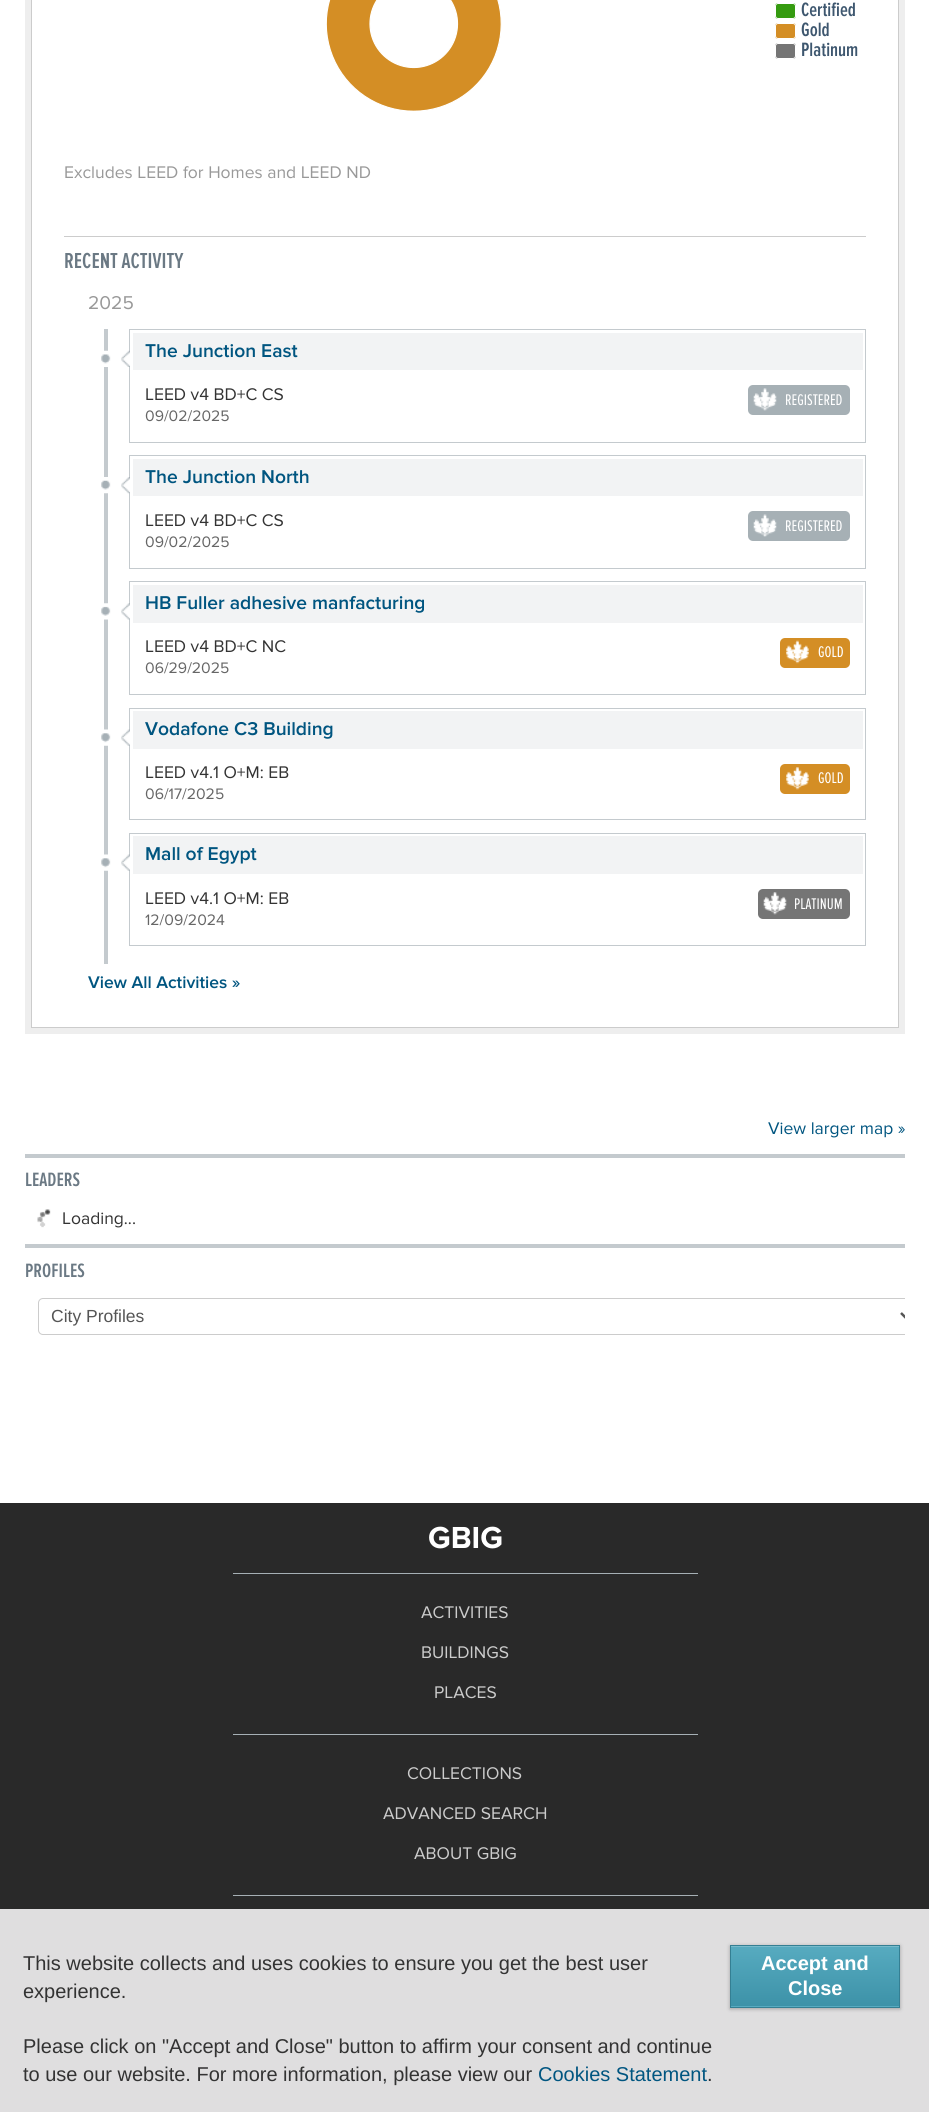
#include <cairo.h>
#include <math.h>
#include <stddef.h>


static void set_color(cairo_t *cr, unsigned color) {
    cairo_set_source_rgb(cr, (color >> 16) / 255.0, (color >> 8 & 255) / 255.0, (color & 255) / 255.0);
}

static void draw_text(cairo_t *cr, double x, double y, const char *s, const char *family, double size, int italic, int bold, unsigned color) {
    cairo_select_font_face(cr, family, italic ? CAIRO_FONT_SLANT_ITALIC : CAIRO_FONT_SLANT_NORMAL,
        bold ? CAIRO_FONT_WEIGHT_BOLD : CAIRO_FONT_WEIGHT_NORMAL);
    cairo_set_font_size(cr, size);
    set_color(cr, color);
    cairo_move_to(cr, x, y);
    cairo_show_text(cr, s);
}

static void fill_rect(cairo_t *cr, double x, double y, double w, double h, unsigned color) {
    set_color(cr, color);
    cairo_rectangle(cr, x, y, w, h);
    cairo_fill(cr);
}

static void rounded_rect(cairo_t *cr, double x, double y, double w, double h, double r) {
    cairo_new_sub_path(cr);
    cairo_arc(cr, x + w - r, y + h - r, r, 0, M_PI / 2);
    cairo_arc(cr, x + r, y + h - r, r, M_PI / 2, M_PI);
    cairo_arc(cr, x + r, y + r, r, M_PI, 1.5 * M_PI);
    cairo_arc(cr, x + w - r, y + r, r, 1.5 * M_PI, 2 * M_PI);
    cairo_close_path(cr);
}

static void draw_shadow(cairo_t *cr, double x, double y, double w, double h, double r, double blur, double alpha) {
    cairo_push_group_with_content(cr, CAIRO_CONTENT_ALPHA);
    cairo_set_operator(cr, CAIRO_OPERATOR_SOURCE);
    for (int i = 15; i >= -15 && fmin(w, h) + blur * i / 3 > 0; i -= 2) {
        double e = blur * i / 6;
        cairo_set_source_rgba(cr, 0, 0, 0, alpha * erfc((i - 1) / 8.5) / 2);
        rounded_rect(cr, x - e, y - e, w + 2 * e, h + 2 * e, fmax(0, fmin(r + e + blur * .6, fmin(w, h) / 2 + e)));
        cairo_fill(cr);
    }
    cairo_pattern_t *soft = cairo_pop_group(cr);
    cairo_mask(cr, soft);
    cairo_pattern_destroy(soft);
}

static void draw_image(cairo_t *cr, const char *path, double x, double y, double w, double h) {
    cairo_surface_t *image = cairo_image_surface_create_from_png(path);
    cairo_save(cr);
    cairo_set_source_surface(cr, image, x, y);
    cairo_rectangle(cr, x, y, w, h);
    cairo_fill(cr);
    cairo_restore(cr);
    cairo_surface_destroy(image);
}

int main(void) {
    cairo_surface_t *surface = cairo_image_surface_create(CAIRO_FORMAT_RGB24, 929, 2112);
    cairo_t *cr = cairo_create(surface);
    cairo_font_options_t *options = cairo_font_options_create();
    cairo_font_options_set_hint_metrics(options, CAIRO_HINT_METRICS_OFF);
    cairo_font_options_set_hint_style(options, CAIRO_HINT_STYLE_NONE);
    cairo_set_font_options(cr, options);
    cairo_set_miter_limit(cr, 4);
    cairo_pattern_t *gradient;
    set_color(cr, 0xFFFFFF);
    cairo_paint(cr);
    cairo_rectangle(cr, 28, -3, 874, 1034);
    set_color(cr, 0xEEEEEE);
    cairo_set_line_width(cr, 6);
    cairo_stroke(cr);
    cairo_rectangle(cr, 31.5, -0.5, 867, 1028);
    set_color(cr, 0xCCCCCC);
    cairo_set_line_width(cr, 1);
    cairo_stroke(cr);
    draw_image(cr, "assets/img1.png", 326, 0, 470, 111);
    draw_text(cr, 801, 16, "Certified", "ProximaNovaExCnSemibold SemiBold", 20, 0, 0, 0x3E576F);
    draw_text(cr, 801, 36, "Gold", "ProximaNovaExCnSemibold SemiBold", 20, 0, 0, 0x3E576F);
    draw_text(cr, 801, 56, "Platinum", "ProximaNovaExCnSemibold SemiBold", 20, 0, 0, 0x3E576F);
    draw_text(cr, 64, 178, "Excludes LEED for Homes and LEED ND", "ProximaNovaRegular", 17.5, 0, 0, 0x999999);
    fill_rect(cr, 64, 236, 802, 1, 0xCCCCCC);
    draw_text(cr, 64, 268, "RECENT ACTIVITY", "ProximaNovaExCnSemibold SemiBold", 22.5, 0, 0, 0x6B7984);
    draw_text(cr, 88, 309, "2025", "ProximaNovaRegular", 19.25, 0, 0, 0x999999);
    fill_rect(cr, 104, 329, 4, 635, 0xC4CACE);
    cairo_rectangle(cr, 129.5, 329.5, 736, 113);
    cairo_stroke(cr);
    draw_image(cr, "assets/img2.png", 101, 350, 29, 17);
    fill_rect(cr, 133, 333, 730, 37, 0xF2F3F4);
    draw_text(cr, 145, 357, "The Junction East", "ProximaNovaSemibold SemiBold", 19.25, 0, 0, 0x005580);
    draw_text(cr, 145, 400, "LEED v4 BD+C CS", "ProximaNovaRegular", 17.5, 0, 0, 0x333333);
    set_color(cr, 0xA6B0B5);
    rounded_rect(cr, 748, 385, 102, 30, 5);
    cairo_fill(cr);
    draw_image(cr, "assets/img3.png", 753, 388, 24, 23);
    draw_text(cr, 785, 405, "REGISTERED", "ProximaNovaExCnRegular", 16, 0, 0, 0xFFFFFF);
    draw_text(cr, 145, 421, "09/02/2025", "ProximaNovaRegular", 15.75, 0, 0, 0x666666);
    cairo_rectangle(cr, 129.5, 455.5, 736, 113);
    set_color(cr, 0xC4CACE);
    cairo_stroke(cr);
    draw_image(cr, "assets/img4.png", 101, 477, 29, 17);
    fill_rect(cr, 133, 459, 730, 37, 0xF2F3F4);
    draw_text(cr, 145, 483, "The Junction North", "ProximaNovaSemibold SemiBold", 19.25, 0, 0, 0x005580);
    draw_text(cr, 145, 526, "LEED v4 BD+C CS", "ProximaNovaRegular", 17.5, 0, 0, 0x333333);
    set_color(cr, 0xA6B0B5);
    rounded_rect(cr, 748, 511, 102, 30, 5);
    cairo_fill(cr);
    draw_image(cr, "assets/img5.png", 753, 514, 24, 23);
    draw_text(cr, 785, 531, "REGISTERED", "ProximaNovaExCnRegular", 16, 0, 0, 0xFFFFFF);
    draw_text(cr, 145, 547, "09/02/2025", "ProximaNovaRegular", 15.75, 0, 0, 0x666666);
    cairo_rectangle(cr, 129.5, 581.5, 736, 113);
    set_color(cr, 0xC4CACE);
    cairo_stroke(cr);
    draw_image(cr, "assets/img6.png", 101, 603, 29, 17);
    fill_rect(cr, 133, 585, 730, 38, 0xF2F3F4);
    draw_text(cr, 145, 609, "HB Fuller adhesive manfacturing", "ProximaNovaSemibold SemiBold", 19.25, 0, 0, 0x005580);
    draw_text(cr, 145, 652, "LEED v4 BD+C NC", "ProximaNovaRegular", 17.5, 0, 0, 0x333333);
    set_color(cr, 0xD48E25);
    rounded_rect(cr, 780, 638, 70, 30, 5);
    cairo_fill(cr);
    draw_image(cr, "assets/img7.png", 786, 640, 23, 24);
    draw_text(cr, 818, 657, "GOLD", "ProximaNovaExCnRegular", 16, 0, 0, 0xFFFFFF);
    draw_text(cr, 145, 673, "06/29/2025", "ProximaNovaRegular", 15.75, 0, 0, 0x666666);
    cairo_rectangle(cr, 129.5, 708.5, 736, 111);
    set_color(cr, 0xC4CACE);
    cairo_stroke(cr);
    draw_image(cr, "assets/img8.png", 101, 729, 29, 17);
    fill_rect(cr, 133, 711, 730, 38, 0xF2F3F4);
    draw_text(cr, 145, 735, "Vodafone C3 Building", "ProximaNovaSemibold SemiBold", 19.25, 0, 0, 0x005580);
    draw_text(cr, 145, 778, "LEED v4.1 O+M: EB", "ProximaNovaRegular", 17.5, 0, 0, 0x333333);
    set_color(cr, 0xD48E25);
    rounded_rect(cr, 780, 764, 70, 30, 5);
    cairo_fill(cr);
    draw_image(cr, "assets/img9.png", 786, 767, 23, 23);
    draw_text(cr, 818, 783, "GOLD", "ProximaNovaExCnRegular", 16, 0, 0, 0xFFFFFF);
    draw_text(cr, 145, 799, "06/17/2025", "ProximaNovaRegular", 15.75, 0, 0, 0x666666);
    cairo_rectangle(cr, 129.5, 833.5, 736, 112);
    set_color(cr, 0xC4CACE);
    cairo_stroke(cr);
    draw_image(cr, "assets/img8.png", 101, 854, 29, 17);
    fill_rect(cr, 133, 836, 730, 38, 0xF2F3F4);
    draw_text(cr, 145, 860, "Mall of Egypt", "ProximaNovaSemibold SemiBold", 19.25, 0, 0, 0x005580);
    draw_text(cr, 145, 904, "LEED v4.1 O+M: EB", "ProximaNovaRegular", 17.5, 0, 0, 0x333333);
    set_color(cr, 0x757575);
    rounded_rect(cr, 758, 889, 92, 30, 5);
    cairo_fill(cr);
    draw_image(cr, "assets/img10.png", 763, 892, 24, 23);
    draw_text(cr, 794, 909, "PLATINUM", "ProximaNovaExCnRegular", 16, 0, 0, 0xFFFFFF);
    draw_text(cr, 145, 925, "12/09/2024", "ProximaNovaRegular", 15.75, 0, 0, 0x666666);
    draw_text(cr, 88, 988, "View All Activities »", "ProximaNovaSemibold SemiBold", 17.5, 0, 0, 0x005580);
    draw_text(cr, 768, 1134, "View larger map »", "ProximaNovaRegular", 17.5, 0, 0, 0x005580);
    fill_rect(cr, 25, 1154, 880, 4, 0xC4CACE);
    draw_text(cr, 25, 1186, "LEADERS", "ProximaNovaExCnSemibold SemiBold", 20, 0, 0, 0x6B7984);
    draw_image(cr, "assets/img11.png", 37, 1209, 14, 19);
    draw_text(cr, 62, 1224, "Loading...", "ProximaNovaRegular", 17.5, 0, 0, 0x333333);
    fill_rect(cr, 25, 1244, 880, 4, 0xC4CACE);
    draw_text(cr, 25, 1277, "PROFILES", "ProximaNovaExCnSemibold SemiBold", 20, 0, 0, 0x6B7984);
    cairo_save(cr);
    cairo_rectangle(cr, 25, 0, 880, 1348);
    cairo_clip(cr);
    rounded_rect(cr, 38.5, 1298.5, 879, 36, 4.5);
    set_color(cr, 0xCCCCCC);
    cairo_stroke(cr);
    cairo_new_path(cr);
    cairo_move_to(cr, 901, 1313);
    cairo_line_to(cr, 906, 1318);
    cairo_line_to(cr, 911, 1313);
    set_color(cr, 0x555555);
    cairo_set_line_width(cr, 2.5);
    cairo_stroke(cr);
    cairo_restore(cr);
    draw_text(cr, 51, 1322, "City Profiles", "Liberation Sans", 17.5, 0, 0, 0x555555);
    fill_rect(cr, 0, 1503, 929, 406, 0x292929);
    draw_text(cr, 428, 1548, "GBIG", "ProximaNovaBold", 31.5, 0, 1, 0xFFFFFF);
    fill_rect(cr, 233, 1573, 465, 1, 0xA6B0B5);
    draw_text(cr, 421, 1618, "ACTIVITIES", "ProximaNovaRegular", 17.5, 0, 0, 0xCCCCCC);
    draw_text(cr, 421, 1658, "BUILDINGS", "ProximaNovaRegular", 17.5, 0, 0, 0xCCCCCC);
    draw_text(cr, 434, 1698, "PLACES", "ProximaNovaRegular", 17.5, 0, 0, 0xCCCCCC);
    fill_rect(cr, 233, 1734, 465, 1, 0xA6B0B5);
    draw_text(cr, 407, 1779, "COLLECTIONS", "ProximaNovaRegular", 17.5, 0, 0, 0xCCCCCC);
    draw_text(cr, 383, 1819, "ADVANCED SEARCH", "ProximaNovaRegular", 17.5, 0, 0, 0xCCCCCC);
    draw_text(cr, 414, 1859, "ABOUT GBIG", "ProximaNovaRegular", 17.5, 0, 0, 0xCCCCCC);
    fill_rect(cr, 233, 1895, 465, 1, 0xA6B0B5);
    fill_rect(cr, 0, 1909, 929, 203, 0xDFDEDF);
    draw_text(cr, 23, 1970, "This website collects and uses cookies to ensure you get the best user", "Liberation Sans", 20, 0, 0, 0x333333);
    draw_text(cr, 23, 1998, "experience.", "Liberation Sans", 20, 0, 0, 0x333333);
    draw_text(cr, 23, 2053, "Please click on \"Accept and Close\" button to affirm your consent and continue", "Liberation Sans", 20, 0, 0, 0x333333);
    draw_text(cr, 23, 2081, "to use our website. For more information, please view our", "Liberation Sans", 20, 0, 0, 0x333333);
    draw_text(cr, 538, 2081, "Cookies Statement", "Liberation Sans", 20, 0, 0, 0x005580);
    draw_text(cr, 707, 2081, ".", "Liberation Sans", 20, 0, 0, 0x333333);
    set_color(cr, 0x000000);
    draw_shadow(cr, 730, 1946, 170, 63, 0, 2, 0.28);
    fill_rect(cr, 731, 2006, 168, 1, 0x57ABC0);
    gradient = cairo_pattern_create_linear(731, 1946, 731, 2006);
    cairo_pattern_add_color_stop_rgba(gradient, 0, 0.341, 0.671, 0.753, 1);
    cairo_pattern_add_color_stop_rgba(gradient, 1, 0.239, 0.573, 0.659, 1);
    cairo_set_source(cr, gradient);
    cairo_pattern_destroy(gradient);
    cairo_rectangle(cr, 731, 1947, 168, 59);
    cairo_fill(cr);
    fill_rect(cr, 731, 1946, 168, 1, 0x78BBCC);
    cairo_rectangle(cr, 730.5, 1945.5, 169, 62);
    set_color(cr, 0x347F93);
    cairo_stroke(cr);
    draw_text(cr, 761, 1970, "Accept and", "Liberation Sans", 20, 0, 1, 0xFFFFFF);
    draw_text(cr, 788, 1995, "Close", "Liberation Sans", 20, 0, 1, 0xFFFFFF);
    cairo_surface_write_to_png(surface, "output.png");
    cairo_font_options_destroy(options);
    cairo_destroy(cr);
    cairo_surface_destroy(surface);
    return 0;
}
